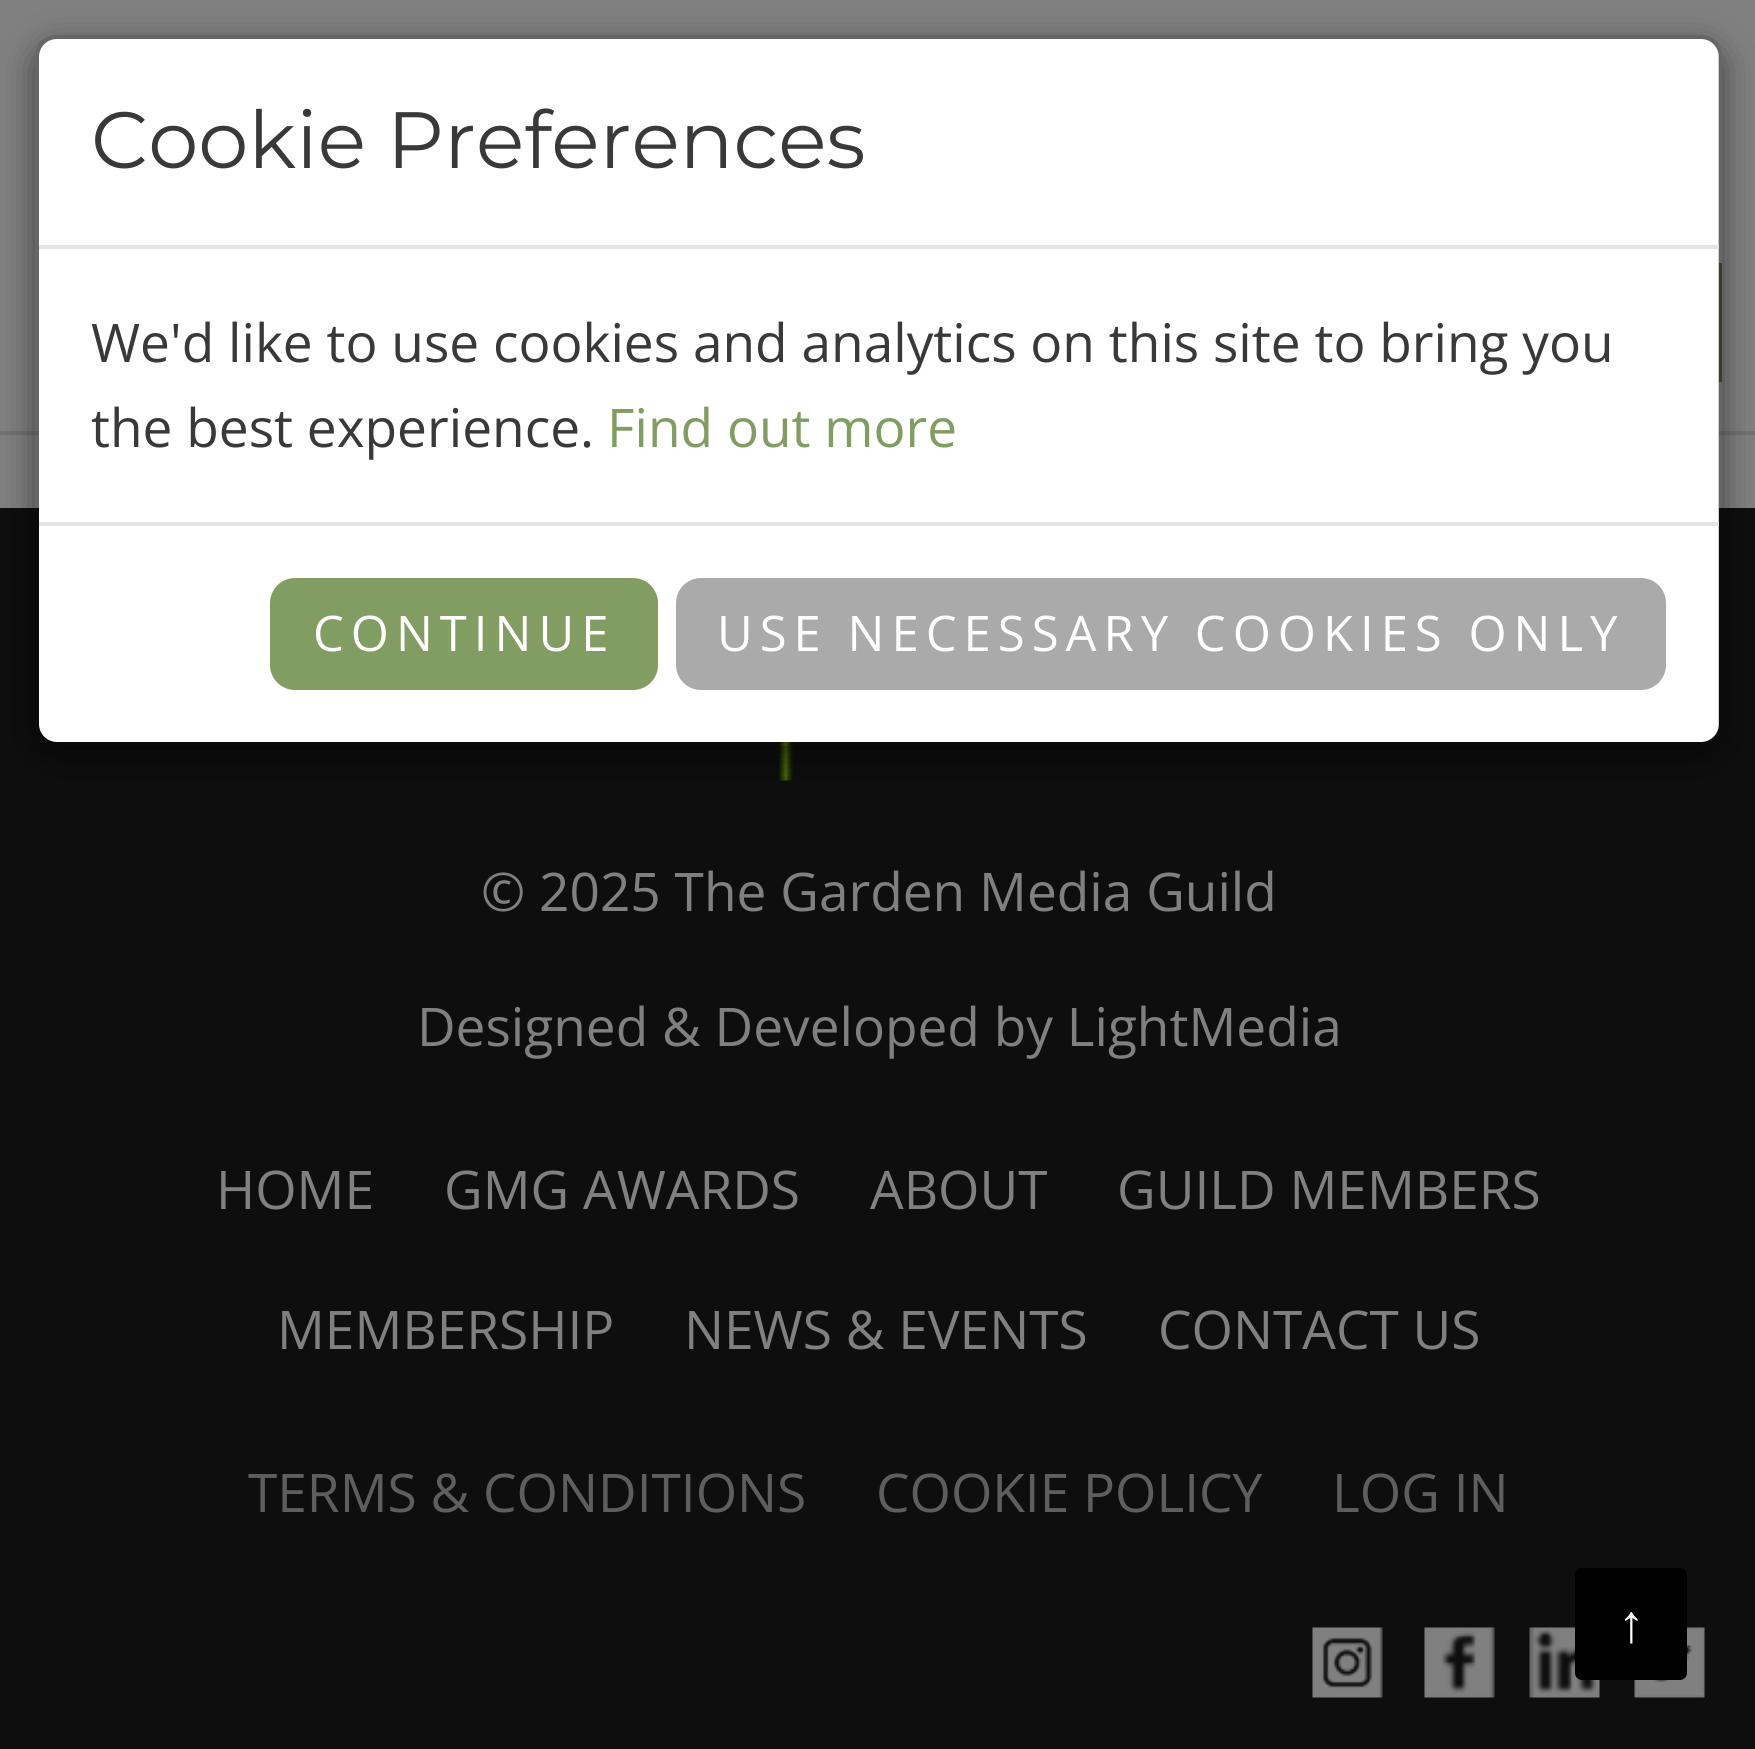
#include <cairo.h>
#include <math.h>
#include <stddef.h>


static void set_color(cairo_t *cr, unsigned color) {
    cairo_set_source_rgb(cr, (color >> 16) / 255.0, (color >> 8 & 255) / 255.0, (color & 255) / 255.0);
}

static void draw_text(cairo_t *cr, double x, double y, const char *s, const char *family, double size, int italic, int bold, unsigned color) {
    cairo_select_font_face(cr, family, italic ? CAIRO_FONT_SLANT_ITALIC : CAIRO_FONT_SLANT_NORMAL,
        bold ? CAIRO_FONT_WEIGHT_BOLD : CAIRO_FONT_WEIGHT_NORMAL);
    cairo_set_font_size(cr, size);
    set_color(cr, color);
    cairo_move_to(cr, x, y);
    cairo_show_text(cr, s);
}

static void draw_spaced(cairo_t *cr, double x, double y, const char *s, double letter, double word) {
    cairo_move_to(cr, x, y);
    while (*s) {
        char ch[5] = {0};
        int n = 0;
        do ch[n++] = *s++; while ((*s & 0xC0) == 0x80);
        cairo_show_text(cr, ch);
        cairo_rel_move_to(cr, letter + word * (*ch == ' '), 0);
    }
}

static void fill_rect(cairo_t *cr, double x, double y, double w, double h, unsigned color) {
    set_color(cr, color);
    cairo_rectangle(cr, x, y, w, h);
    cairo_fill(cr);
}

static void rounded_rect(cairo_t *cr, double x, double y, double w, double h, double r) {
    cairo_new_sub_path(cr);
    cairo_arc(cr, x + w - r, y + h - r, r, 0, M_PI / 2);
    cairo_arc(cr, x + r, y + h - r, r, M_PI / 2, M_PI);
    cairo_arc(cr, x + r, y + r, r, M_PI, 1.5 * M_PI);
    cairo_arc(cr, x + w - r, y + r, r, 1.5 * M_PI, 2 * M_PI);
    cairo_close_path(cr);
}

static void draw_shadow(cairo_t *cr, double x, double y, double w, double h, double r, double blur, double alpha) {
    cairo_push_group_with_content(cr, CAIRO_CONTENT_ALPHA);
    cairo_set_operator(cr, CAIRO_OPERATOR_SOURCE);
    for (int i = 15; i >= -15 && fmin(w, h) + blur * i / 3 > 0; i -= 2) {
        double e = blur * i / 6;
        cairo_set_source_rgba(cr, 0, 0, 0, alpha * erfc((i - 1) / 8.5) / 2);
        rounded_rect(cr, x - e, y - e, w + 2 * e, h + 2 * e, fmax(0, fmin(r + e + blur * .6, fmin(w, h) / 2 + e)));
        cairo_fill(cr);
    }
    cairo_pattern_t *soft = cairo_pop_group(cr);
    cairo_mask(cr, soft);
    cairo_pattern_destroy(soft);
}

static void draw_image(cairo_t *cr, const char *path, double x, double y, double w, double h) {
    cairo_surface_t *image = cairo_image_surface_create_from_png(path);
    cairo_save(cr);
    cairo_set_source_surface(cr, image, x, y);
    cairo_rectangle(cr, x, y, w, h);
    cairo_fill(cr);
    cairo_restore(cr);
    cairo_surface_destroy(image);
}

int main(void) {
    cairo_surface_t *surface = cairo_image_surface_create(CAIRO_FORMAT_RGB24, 1755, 1749);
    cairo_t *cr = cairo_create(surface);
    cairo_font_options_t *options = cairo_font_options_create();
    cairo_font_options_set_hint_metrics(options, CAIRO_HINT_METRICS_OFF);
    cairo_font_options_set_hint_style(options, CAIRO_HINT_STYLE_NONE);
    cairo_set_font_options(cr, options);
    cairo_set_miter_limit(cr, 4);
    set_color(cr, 0x808080);
    cairo_paint(cr);
    fill_rect(cr, 1719, 263, 3, 119, 0x414F31);
    fill_rect(cr, 0, 431, 1755, 4, 0x707272);
    fill_rect(cr, 0, 508, 1755, 1241, 0x0E0E0E);
    draw_image(cr, "assets/img1.png", 779, 742, 14, 39);
    cairo_save(cr);
    cairo_set_fill_rule(cr, CAIRO_FILL_RULE_EVEN_ODD);
    cairo_new_path(cr);
    cairo_move_to(cr, 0, 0);
    cairo_line_to(cr, 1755, 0);
    cairo_line_to(cr, 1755, 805);
    cairo_line_to(cr, 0, 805);
    cairo_close_path(cr);
    cairo_move_to(cr, 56, 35);
    cairo_line_to(cr, 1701, 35);
    cairo_curve_to(cr, 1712.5, 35, 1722, 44.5, 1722, 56);
    cairo_line_to(cr, 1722, 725);
    cairo_curve_to(cr, 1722, 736.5, 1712.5, 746, 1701, 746);
    cairo_line_to(cr, 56, 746);
    cairo_curve_to(cr, 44.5, 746, 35, 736.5, 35, 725);
    cairo_line_to(cr, 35, 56);
    cairo_curve_to(cr, 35, 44.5, 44.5, 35, 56, 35);
    cairo_close_path(cr);
    cairo_clip(cr);
    set_color(cr, 0x000000);
    draw_shadow(cr, 35, 46, 1687, 710, 21, 16, 0.5);
    cairo_restore(cr);
    set_color(cr, 0xFFFFFF);
    rounded_rect(cr, 39, 39, 1680, 703, 18);
    cairo_fill(cr);
    rounded_rect(cr, 37, 37, 1683, 707, 19);
    cairo_set_source_rgba(cr, 0, 0, 0, 0.2);
    cairo_set_line_width(cr, 4);
    cairo_stroke(cr);
    fill_rect(cr, 39, 245, 1680, 4, 0xE5E5E5);
    draw_text(cr, 91, 168, "Cookie Preferences", "Montserrat", 79.75, 0, 0, 0x393939);
    draw_text(cr, 91, 362, "We'd like to use cookies and analytics on this site to bring you", "Open Sans", 53.2, 0, 0, 0x393939);
    draw_text(cr, 91, 447, "the best experience.", "Open Sans", 53.2, 0, 0, 0x393939);
    draw_text(cr, 607, 447, "Find out more", "Open Sans", 53.2, 0, 0, 0x819D62);
    fill_rect(cr, 39, 522, 1680, 4, 0xE5E5E5);
    set_color(cr, 0x819D62);
    rounded_rect(cr, 270, 578, 388, 112, 25);
    cairo_fill(cr);
    cairo_set_font_size(cr, 49);
    set_color(cr, 0xFFFFFF);
    draw_spaced(cr, 313, 651, "CONTINUE", 7, 0);
    set_color(cr, 0xAAAAAA);
    rounded_rect(cr, 676, 578, 990, 112, 25);
    cairo_fill(cr);
    set_color(cr, 0xFFFFFF);
    draw_spaced(cr, 717, 651, "USE NECESSARY COOKIES ONLY", 7, 0);
    draw_image(cr, "assets/img4.png", 1529, 1627, 71, 71);
    draw_image(cr, "assets/img5.png", 1634, 1627, 71, 71);
    set_color(cr, 0x000000);
    rounded_rect(cr, 1575, 1568, 112, 112, 7);
    cairo_fill(cr);
    draw_text(cr, 1618, 1642, "↑", "Liberation Sans", 53.2, 0, 0, 0xFFFFFF);
    draw_text(cr, 481, 911, "© 2025 The Garden Media Guild", "Open Sans", 53.2, 0, 0, 0x808080);
    draw_text(cr, 417, 1046, "Designed & Developed by LightMedia", "Open Sans", 53.2, 0, 0, 0x808080);
    draw_text(cr, 216, 1209, "HOME", "Open Sans", 53.2, 0, 0, 0x808080);
    draw_text(cr, 444, 1209, "GMG AWARDS", "Open Sans", 53.2, 0, 0, 0x808080);
    draw_text(cr, 870, 1209, "ABOUT", "Open Sans", 53.2, 0, 0, 0x808080);
    draw_text(cr, 1117, 1209, "GUILD MEMBERS", "Open Sans", 53.2, 0, 0, 0x808080);
    draw_text(cr, 277, 1349, "MEMBERSHIP", "Open Sans", 53.2, 0, 0, 0x808080);
    draw_text(cr, 684, 1349, "NEWS & EVENTS", "Open Sans", 53.2, 0, 0, 0x808080);
    draw_text(cr, 1158, 1349, "CONTACT US", "Open Sans", 53.2, 0, 0, 0x808080);
    draw_text(cr, 248, 1512, "TERMS & CONDITIONS", "Open Sans", 53.2, 0, 0, 0x5E5E5E);
    draw_text(cr, 876, 1512, "COOKIE POLICY", "Open Sans", 53.2, 0, 0, 0x5E5E5E);
    draw_text(cr, 1332, 1512, "LOG IN", "Open Sans", 53.2, 0, 0, 0x5E5E5E);
    draw_image(cr, "assets/img2.png", 1312, 1627, 71, 71);
    draw_image(cr, "assets/img3.png", 1424, 1627, 71, 71);
    cairo_surface_write_to_png(surface, "output.png");
    cairo_font_options_destroy(options);
    cairo_destroy(cr);
    cairo_surface_destroy(surface);
    return 0;
}
